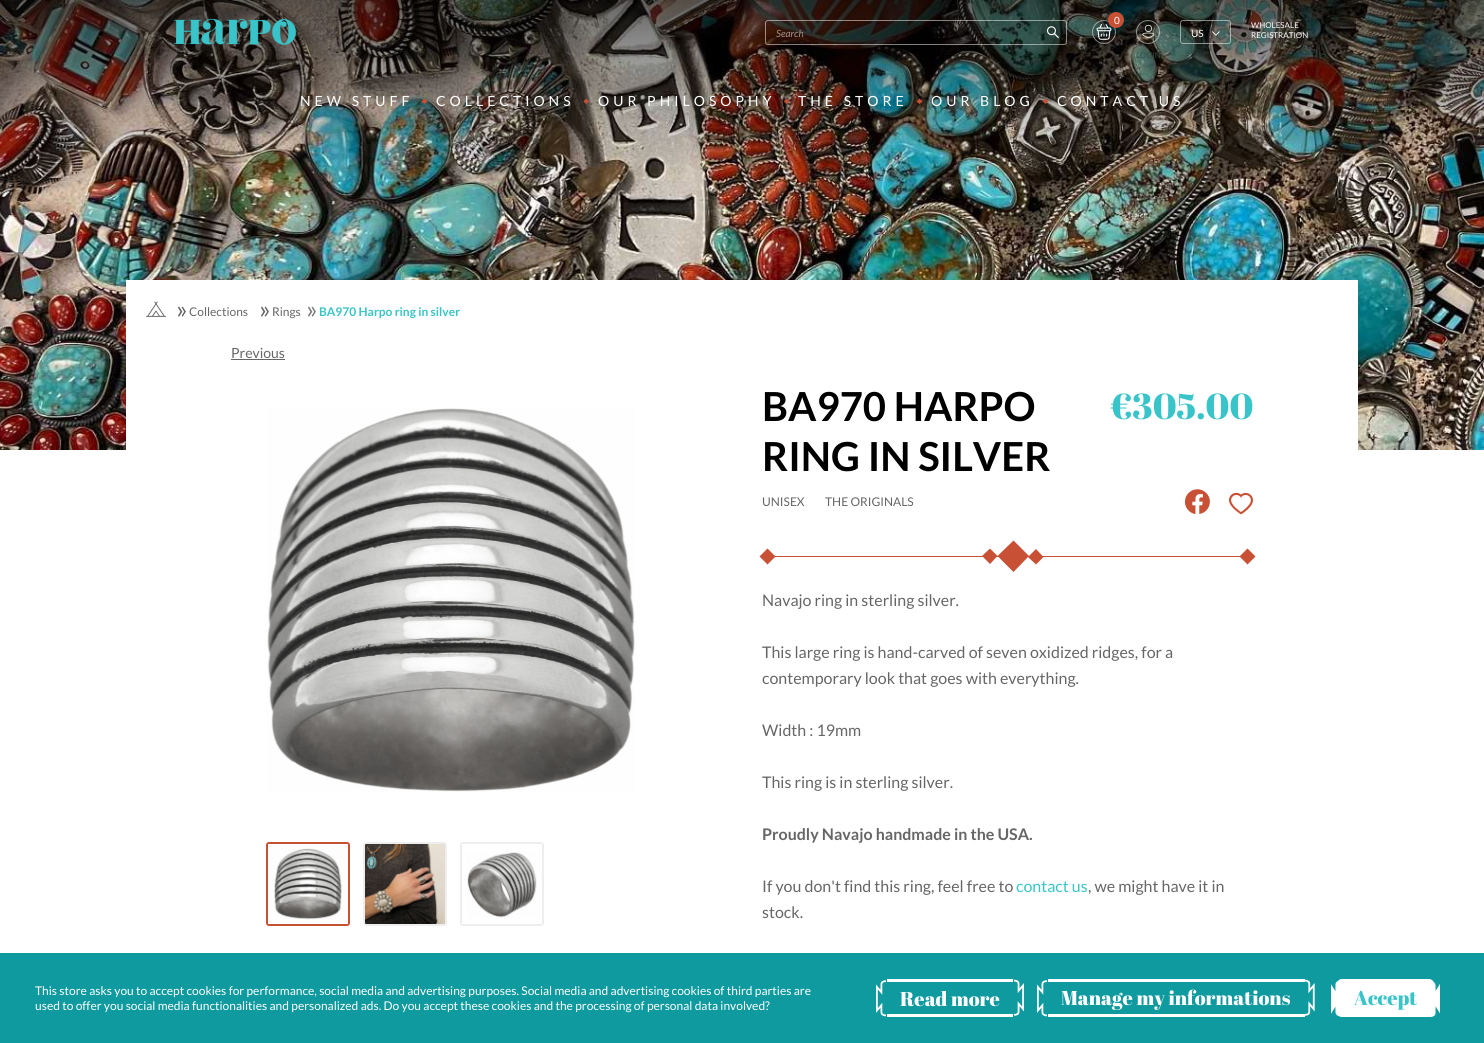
#include <cairo.h>
#include <math.h>
#include <stddef.h>


static void set_color(cairo_t *cr, unsigned color) {
    cairo_set_source_rgb(cr, (color >> 16) / 255.0, (color >> 8 & 255) / 255.0, (color & 255) / 255.0);
}

static void draw_text(cairo_t *cr, double x, double y, const char *s, const char *family, double size, int italic, int bold, unsigned color) {
    cairo_select_font_face(cr, family, italic ? CAIRO_FONT_SLANT_ITALIC : CAIRO_FONT_SLANT_NORMAL,
        bold ? CAIRO_FONT_WEIGHT_BOLD : CAIRO_FONT_WEIGHT_NORMAL);
    cairo_set_font_size(cr, size);
    set_color(cr, color);
    cairo_move_to(cr, x, y);
    cairo_show_text(cr, s);
}

static void draw_spaced(cairo_t *cr, double x, double y, const char *s, double letter, double word) {
    cairo_move_to(cr, x, y);
    while (*s) {
        char ch[5] = {0};
        int n = 0;
        do ch[n++] = *s++; while ((*s & 0xC0) == 0x80);
        cairo_show_text(cr, ch);
        cairo_rel_move_to(cr, letter + word * (*ch == ' '), 0);
    }
}

static void fill_rect(cairo_t *cr, double x, double y, double w, double h, unsigned color) {
    set_color(cr, color);
    cairo_rectangle(cr, x, y, w, h);
    cairo_fill(cr);
}

static void rounded_rect(cairo_t *cr, double x, double y, double w, double h, double r) {
    cairo_new_sub_path(cr);
    cairo_arc(cr, x + w - r, y + h - r, r, 0, M_PI / 2);
    cairo_arc(cr, x + r, y + h - r, r, M_PI / 2, M_PI);
    cairo_arc(cr, x + r, y + r, r, M_PI, 1.5 * M_PI);
    cairo_arc(cr, x + w - r, y + r, r, 1.5 * M_PI, 2 * M_PI);
    cairo_close_path(cr);
}

static void draw_image(cairo_t *cr, const char *path, double x, double y, double w, double h) {
    cairo_surface_t *image = cairo_image_surface_create_from_png(path);
    cairo_save(cr);
    cairo_set_source_surface(cr, image, x, y);
    cairo_rectangle(cr, x, y, w, h);
    cairo_fill(cr);
    cairo_restore(cr);
    cairo_surface_destroy(image);
}

int main(void) {
    cairo_surface_t *surface = cairo_image_surface_create(CAIRO_FORMAT_RGB24, 1484, 1043);
    cairo_t *cr = cairo_create(surface);
    cairo_font_options_t *options = cairo_font_options_create();
    cairo_font_options_set_hint_metrics(options, CAIRO_HINT_METRICS_OFF);
    cairo_font_options_set_hint_style(options, CAIRO_HINT_STYLE_NONE);
    cairo_set_font_options(cr, options);
    cairo_set_miter_limit(cr, 4);
    set_color(cr, 0xFFFFFF);
    cairo_paint(cr);
    draw_image(cr, "assets/img7.png", 0, 0, 1484, 450);
    draw_image(cr, "assets/img1.png", 0, 0, 1484, 174);
    draw_image(cr, "assets/img2.png", 173, 18, 124, 27);
    cairo_arc(cr, 1104, 32, 11.5, 0, 2 * M_PI);
    cairo_set_source_rgba(cr, 1, 1, 1, 0.5);
    cairo_set_line_width(cr, 1);
    cairo_stroke(cr);
    draw_image(cr, "assets/img3.png", 1096, 24, 16, 16);
    set_color(cr, 0xC85034);
    cairo_arc(cr, 1116, 20, 8, 0, 2 * M_PI);
    cairo_fill(cr);
    draw_text(cr, 1114, 24, "0", "Lato", 10, 0, 0, 0xFFFFFF);
    rounded_rect(cr, 765.5, 20.5, 301, 24, 2.5);
    cairo_set_source_rgba(cr, 1, 1, 1, 0.5);
    cairo_stroke(cr);
    draw_text(cr, 776, 37, "Search", "Lato", 10, 1, 0, 0xA0938D);
    draw_image(cr, "assets/img4.png", 1047, 26, 12, 13);
    rounded_rect(cr, 1180.5, 20.5, 50, 23, 2.5);
    cairo_set_source_rgba(cr, 1, 1, 1, 0.5);
    cairo_stroke(cr);
    draw_text(cr, 1191, 37, "US", "Lato", 10, 0, 0, 0xFFFFFF);
    draw_image(cr, "assets/img5.png", 1212, 31, 8, 5);
    draw_text(cr, 1251, 28, "WHOLESALE", "Lato", 8, 0, 0, 0xFFFFFF);
    draw_text(cr, 1251, 38, "REGISTRATION", "Lato", 8, 0, 0, 0xFFFFFF);
    cairo_new_path(cr);
    cairo_arc(cr, 1148, 32, 11.5, 0, 2 * M_PI);
    cairo_set_source_rgba(cr, 1, 1, 1, 0.5);
    cairo_stroke(cr);
    draw_image(cr, "assets/img6.png", 1142, 24, 13, 14);
    draw_text(cr, 1136, 58, "LOGIN", "Lato", 8, 0, 0, 0x364C43);
    cairo_set_font_size(cr, 14);
    set_color(cr, 0xFFFFFF);
    draw_spaced(cr, 300, 106, "NEW STUFF", 4, 0);
    set_color(cr, 0xC85034);
    cairo_new_path(cr);
    cairo_move_to(cr, 424.5, 98.5);
    cairo_line_to(cr, 427.5, 101.5);
    cairo_line_to(cr, 424.5, 104);
    cairo_line_to(cr, 421.5, 101.5);
    cairo_close_path(cr);
    cairo_fill(cr);
    set_color(cr, 0xFFFFFF);
    draw_spaced(cr, 436, 106, "COLLECTIONS", 4, 0);
    set_color(cr, 0xC85034);
    cairo_new_path(cr);
    cairo_move_to(cr, 586, 98.5);
    cairo_line_to(cr, 589, 101.5);
    cairo_line_to(cr, 586, 104);
    cairo_line_to(cr, 583.5, 101.5);
    cairo_close_path(cr);
    cairo_fill(cr);
    set_color(cr, 0xFFFFFF);
    draw_spaced(cr, 598, 106, "OUR PHILOSOPHY", 4, 0);
    set_color(cr, 0xC85034);
    cairo_new_path(cr);
    cairo_move_to(cr, 786.5, 98.5);
    cairo_line_to(cr, 789.5, 101.5);
    cairo_line_to(cr, 786.5, 104);
    cairo_line_to(cr, 784, 101.5);
    cairo_close_path(cr);
    cairo_fill(cr);
    set_color(cr, 0xFFFFFF);
    draw_spaced(cr, 798, 106, "THE STORE", 4, 0);
    set_color(cr, 0xC85034);
    cairo_new_path(cr);
    cairo_move_to(cr, 919.5, 98.5);
    cairo_line_to(cr, 922.5, 101.5);
    cairo_line_to(cr, 919.5, 104);
    cairo_line_to(cr, 916.5, 101.5);
    cairo_close_path(cr);
    cairo_fill(cr);
    set_color(cr, 0xFFFFFF);
    draw_spaced(cr, 931, 106, "OUR BLOG", 4, 0);
    set_color(cr, 0xC85034);
    cairo_new_path(cr);
    cairo_move_to(cr, 1045.5, 98.5);
    cairo_line_to(cr, 1048, 101.5);
    cairo_line_to(cr, 1045.5, 104);
    cairo_line_to(cr, 1042.5, 101.5);
    cairo_close_path(cr);
    cairo_fill(cr);
    set_color(cr, 0xFFFFFF);
    draw_spaced(cr, 1057, 106, "CONTACT US", 4, 0);
    fill_rect(cr, 126, 280, 1232, 170, 0xFFFFFF);
    draw_image(cr, "assets/img8.png", 146, 301, 20, 16);
    draw_image(cr, "assets/img9.png", 178, 306, 8, 11);
    draw_text(cr, 189, 316, "Collections", "Lato", 12, 0, 0, 0x666666);
    draw_image(cr, "assets/img9.png", 261, 306, 8, 11);
    draw_text(cr, 272, 316, "Rings", "Lato", 12, 0, 0, 0x666666);
    draw_image(cr, "assets/img10.png", 308, 306, 8, 11);
    draw_text(cr, 319, 316, "BA970 Harpo ring in silver", "Lato", 12, 0, 1, 0x38C4C9);
    draw_text(cr, 231, 358, "Previous", "Lato", 14, 0, 0, 0x666666);
    fill_rect(cr, 231, 359, 54, 1, 0x666666);
    draw_image(cr, "assets/img11.png", 267, 408, 368, 384);
    rounded_rect(cr, 267, 843, 82, 82, 2);
    set_color(cr, 0xC85034);
    cairo_set_line_width(cr, 2);
    cairo_stroke(cr);
    rounded_rect(cr, 364, 843, 82, 82, 2);
    set_color(cr, 0xEEEEEE);
    cairo_stroke(cr);
    rounded_rect(cr, 461, 843, 82, 82, 2);
    cairo_stroke(cr);
    draw_image(cr, "assets/img12.png", 268, 844, 80, 80);
    draw_image(cr, "assets/img13.png", 365, 844, 80, 80);
    draw_image(cr, "assets/img14.png", 467, 852, 70, 66);
    draw_text(cr, 762, 421, "BA970 HARPO", "Lato", 40, 0, 1, 0x000000);
    draw_text(cr, 762, 471, "RING IN SILVER", "Lato", 40, 0, 1, 0x000000);
    draw_text(cr, 1110, 419, "€305.00", "Abril Fatface", 36, 0, 0, 0x38C4C9);
    draw_text(cr, 762, 506, "UNISEX", "Lato", 12, 0, 0, 0x666666);
    draw_text(cr, 825, 506, "THE ORIGINALS", "Lato", 12, 0, 0, 0x666666);
    draw_image(cr, "assets/img15.png", 1184, 489, 26, 26);
    draw_image(cr, "assets/img16.png", 1229, 492, 24, 23);
    fill_rect(cr, 775, 556, 465, 1, 0xC85034);
    cairo_new_path(cr);
    cairo_move_to(cr, 767.5, 548.5);
    cairo_line_to(cr, 775.5, 556.5);
    cairo_line_to(cr, 767.5, 564.5);
    cairo_line_to(cr, 759.5, 556.5);
    cairo_close_path(cr);
    cairo_fill(cr);
    cairo_new_path(cr);
    cairo_move_to(cr, 1013.5, 540.5);
    cairo_line_to(cr, 1029, 556);
    cairo_line_to(cr, 1013.5, 572);
    cairo_line_to(cr, 997.5, 556);
    cairo_close_path(cr);
    cairo_fill(cr);
    cairo_new_path(cr);
    cairo_move_to(cr, 990, 548.5);
    cairo_line_to(cr, 997.5, 556);
    cairo_line_to(cr, 990, 564);
    cairo_line_to(cr, 982, 556);
    cairo_close_path(cr);
    cairo_move_to(cr, 1036, 549);
    cairo_line_to(cr, 1043.5, 557);
    cairo_line_to(cr, 1036, 564.5);
    cairo_line_to(cr, 1028, 557);
    cairo_close_path(cr);
    cairo_fill(cr);
    cairo_new_path(cr);
    cairo_move_to(cr, 1247.5, 548.5);
    cairo_line_to(cr, 1255.5, 556.5);
    cairo_line_to(cr, 1247.5, 564.5);
    cairo_line_to(cr, 1239.5, 556.5);
    cairo_close_path(cr);
    cairo_fill(cr);
    draw_text(cr, 762, 606, "Navajo ring in sterling silver.", "Lato", 16, 0, 0, 0x666666);
    draw_text(cr, 762, 658, "This large ring is hand-carved of seven oxidized ridges, for a", "Lato", 16, 0, 0, 0x666666);
    draw_text(cr, 762, 684, "contemporary look that goes with everything.", "Lato", 16, 0, 0, 0x666666);
    draw_text(cr, 762, 736, "Width : 19mm", "Lato", 16, 0, 0, 0x666666);
    draw_text(cr, 762, 788, "This ring is in sterling silver.", "Lato", 16, 0, 0, 0x666666);
    draw_text(cr, 762, 840, "Proudly Navajo handmade in the USA.", "Lato", 16, 0, 1, 0x666666);
    draw_text(cr, 762, 892, "If you don't find this ring, feel free to", "Lato", 16, 0, 0, 0x666666);
    draw_text(cr, 1016, 892, "contact us", "Lato", 16, 0, 0, 0x38C4C9);
    draw_text(cr, 1088, 892, ", we might have it in", "Lato", 16, 0, 0, 0x666666);
    draw_text(cr, 762, 918, "stock.", "Lato", 16, 0, 0, 0x666666);
    fill_rect(cr, 0, 953, 1484, 90, 0x0F9A9F);
    draw_text(cr, 35, 995, "This store asks you to accept cookies for performance, social media and advertising purposes. Social media and advertising cookies of third parties are", "Lato", 12, 0, 0, 0xFFFFFF);
    draw_text(cr, 35, 1010, "used to offer you social media functionalities and personalized ads. Do you accept these cookies and the processing of personal data involved?", "Lato", 12, 0, 0, 0xFFFFFF);
    fill_rect(cr, 887, 979, 126, 3, 0xFFFFFF);
    fill_rect(cr, 887, 1014, 126, 3, 0xFFFFFF);
    draw_image(cr, "assets/img17.png", 876, 980, 10, 37);
    draw_text(cr, 900, 1006, "Read more", "Abril Fatface", 20, 0, 0, 0xFFFFFF);
    draw_image(cr, "assets/img18.png", 1014, 979, 10, 37);
    fill_rect(cr, 1048, 979, 257, 3, 0xFFFFFF);
    fill_rect(cr, 1048, 1014, 257, 3, 0xFFFFFF);
    draw_image(cr, "assets/img17.png", 1037, 980, 10, 37);
    draw_text(cr, 1061, 1005, "Manage my informations", "Abril Fatface", 20, 0, 0, 0xFFFFFF);
    draw_image(cr, "assets/img19.png", 1305, 979, 10, 37);
    rounded_rect(cr, 1337, 979, 97, 38, 5);
    cairo_fill(cr);
    draw_image(cr, "assets/img20.png", 1331, 980, 10, 37);
    draw_text(cr, 1354, 1005, "Accept", "Abril Fatface", 20, 0, 0, 0x38C4C9);
    draw_image(cr, "assets/img21.png", 1430, 981, 10, 36);
    cairo_surface_write_to_png(surface, "output.png");
    cairo_font_options_destroy(options);
    cairo_destroy(cr);
    cairo_surface_destroy(surface);
    return 0;
}
